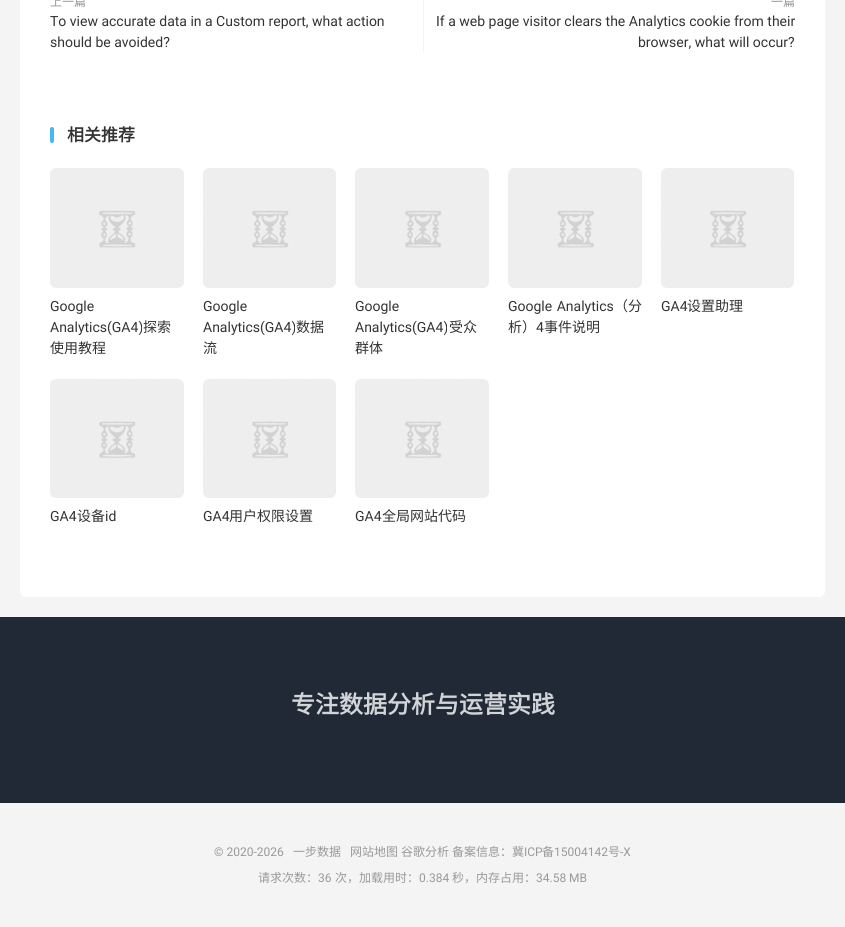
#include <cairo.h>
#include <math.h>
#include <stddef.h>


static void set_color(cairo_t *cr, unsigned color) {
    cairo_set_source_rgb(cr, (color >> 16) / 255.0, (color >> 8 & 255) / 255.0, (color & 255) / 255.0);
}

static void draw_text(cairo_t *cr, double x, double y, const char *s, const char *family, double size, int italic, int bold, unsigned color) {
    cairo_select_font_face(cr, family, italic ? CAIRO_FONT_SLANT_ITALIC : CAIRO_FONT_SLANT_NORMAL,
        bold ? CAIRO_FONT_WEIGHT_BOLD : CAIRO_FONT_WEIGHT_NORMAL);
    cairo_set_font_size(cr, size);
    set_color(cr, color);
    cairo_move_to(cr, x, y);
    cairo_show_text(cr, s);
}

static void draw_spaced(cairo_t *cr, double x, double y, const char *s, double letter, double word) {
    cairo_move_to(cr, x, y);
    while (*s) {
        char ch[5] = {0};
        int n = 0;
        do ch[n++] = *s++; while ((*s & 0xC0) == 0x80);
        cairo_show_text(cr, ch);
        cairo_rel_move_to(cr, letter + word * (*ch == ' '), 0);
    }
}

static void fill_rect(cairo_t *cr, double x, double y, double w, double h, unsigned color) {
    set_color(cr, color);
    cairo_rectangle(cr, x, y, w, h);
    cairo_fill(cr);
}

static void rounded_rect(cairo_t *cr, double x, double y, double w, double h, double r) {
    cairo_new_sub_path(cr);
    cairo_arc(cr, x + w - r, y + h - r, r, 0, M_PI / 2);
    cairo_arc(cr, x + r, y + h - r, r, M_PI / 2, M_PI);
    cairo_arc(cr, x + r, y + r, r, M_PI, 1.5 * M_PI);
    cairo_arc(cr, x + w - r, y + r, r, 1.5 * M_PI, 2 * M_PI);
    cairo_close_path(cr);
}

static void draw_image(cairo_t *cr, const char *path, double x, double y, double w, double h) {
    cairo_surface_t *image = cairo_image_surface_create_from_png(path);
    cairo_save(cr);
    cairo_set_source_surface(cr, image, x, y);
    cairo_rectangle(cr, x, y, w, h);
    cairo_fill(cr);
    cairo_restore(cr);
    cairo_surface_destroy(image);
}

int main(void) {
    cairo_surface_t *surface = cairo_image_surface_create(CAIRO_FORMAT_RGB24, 845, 927);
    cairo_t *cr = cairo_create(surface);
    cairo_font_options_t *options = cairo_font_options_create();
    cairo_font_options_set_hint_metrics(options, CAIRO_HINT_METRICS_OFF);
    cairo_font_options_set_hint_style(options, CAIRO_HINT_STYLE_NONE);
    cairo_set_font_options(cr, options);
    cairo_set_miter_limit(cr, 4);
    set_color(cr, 0xF4F4F4);
    cairo_paint(cr);
    set_color(cr, 0xFFFFFF);
    rounded_rect(cr, 20, -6, 805, 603, 6);
    cairo_fill(cr);
    draw_text(cr, 50, 6, "上一篇", "Noto Sans CJK SC", 12, 0, 0, 0x999999);
    draw_text(cr, 50, 26, "To view accurate data in a Custom report, what action", "Roboto", 14, 0, 0, 0x333333);
    draw_text(cr, 50, 47, "should be avoided?", "Roboto", 14, 0, 0, 0x333333);
    fill_rect(cr, 423, 0, 1, 53, 0xF3F3F3);
    draw_text(cr, 771, 6, "一篇", "Noto Sans CJK SC", 12, 0, 0, 0x999999);
    draw_text(cr, 436, 26, "If a web page visitor clears the Analytics cookie from their", "Roboto", 14, 0, 0, 0x333333);
    draw_text(cr, 638, 47, "browser, what will occur?", "Roboto", 14, 0, 0, 0x333333);
    set_color(cr, 0x45B6F7);
    rounded_rect(cr, 50, 127, 4, 16, 2);
    cairo_fill(cr);
    draw_text(cr, 67, 141, "相关推荐", "Noto Sans CJK SC", 17, 0, 1, 0x333333);
    draw_image(cr, "assets/img1.png", 50, 168, 134, 120);
    draw_text(cr, 50, 311, "Google", "Roboto", 14, 0, 0, 0x333333);
    draw_text(cr, 50, 332, "Analytics(GA4)", "Roboto", 14, 0, 0, 0x333333);
    draw_text(cr, 143, 332, "探索", "Noto Sans CJK SC", 14, 0, 0, 0x333333);
    draw_text(cr, 50, 353, "使用教程", "Noto Sans CJK SC", 14, 0, 0, 0x333333);
    draw_image(cr, "assets/img2.png", 203, 168, 133, 120);
    draw_text(cr, 203, 311, "Google", "Roboto", 14, 0, 0, 0x333333);
    draw_text(cr, 203, 332, "Analytics(GA4)", "Roboto", 14, 0, 0, 0x333333);
    draw_text(cr, 296, 332, "数据", "Noto Sans CJK SC", 14, 0, 0, 0x333333);
    draw_text(cr, 203, 353, "流", "Noto Sans CJK SC", 14, 0, 0, 0x333333);
    draw_image(cr, "assets/img3.png", 355, 168, 134, 120);
    draw_text(cr, 355, 311, "Google", "Roboto", 14, 0, 0, 0x333333);
    draw_text(cr, 355, 332, "Analytics(GA4)", "Roboto", 14, 0, 0, 0x333333);
    draw_text(cr, 449, 332, "受众", "Noto Sans CJK SC", 14, 0, 0, 0x333333);
    draw_text(cr, 355, 353, "群体", "Noto Sans CJK SC", 14, 0, 0, 0x333333);
    draw_image(cr, "assets/img4.png", 508, 168, 134, 120);
    cairo_select_font_face(cr, "Roboto", CAIRO_FONT_SLANT_NORMAL, CAIRO_FONT_WEIGHT_NORMAL);
    draw_spaced(cr, 508, 311, "Google Analytics", 0, 1);
    draw_text(cr, 614, 311, "（分", "Noto Sans CJK SC", 14, 0, 0, 0x333333);
    draw_text(cr, 508, 332, "析）", "Noto Sans CJK SC", 14, 0, 0, 0x333333);
    draw_text(cr, 536, 332, "4", "Roboto", 14, 0, 0, 0x333333);
    draw_text(cr, 544, 332, "事件说明", "Noto Sans CJK SC", 14, 0, 0, 0x333333);
    draw_image(cr, "assets/img2.png", 661, 168, 133, 120);
    draw_text(cr, 661, 311, "GA4", "Roboto", 14, 0, 0, 0x333333);
    draw_text(cr, 687, 311, "设置助理", "Noto Sans CJK SC", 14, 0, 0, 0x333333);
    draw_image(cr, "assets/img5.png", 50, 379, 134, 119);
    draw_text(cr, 50, 521, "GA4", "Roboto", 14, 0, 0, 0x333333);
    draw_text(cr, 77, 521, "设备", "Noto Sans CJK SC", 14, 0, 0, 0x333333);
    draw_text(cr, 105, 521, "id", "Roboto", 14, 0, 0, 0x333333);
    draw_image(cr, "assets/img6.png", 203, 379, 133, 119);
    draw_text(cr, 203, 521, "GA4", "Roboto", 14, 0, 0, 0x333333);
    draw_text(cr, 229, 521, "用户权限设置", "Noto Sans CJK SC", 14, 0, 0, 0x333333);
    draw_image(cr, "assets/img7.png", 355, 379, 134, 119);
    draw_text(cr, 355, 521, "GA4", "Roboto", 14, 0, 0, 0x333333);
    draw_text(cr, 382, 521, "全局网站代码", "Noto Sans CJK SC", 14, 0, 0, 0x333333);
    fill_rect(cr, 0, 617, 845, 186, 0x202935);
    draw_text(cr, 291, 713, "专注数据分析与运营实践", "Noto Sans CJK SC", 24, 0, 1, 0xD2D4D7);
    draw_text(cr, 214, 856, "© 2020-2026", "Roboto", 12, 0, 0, 0x999999);
    draw_text(cr, 293, 856, "一步数据", "Noto Sans CJK SC", 12, 0, 0, 0x999999);
    draw_text(cr, 350, 856, "网站地图", "Noto Sans CJK SC", 12, 0, 0, 0x999999);
    draw_text(cr, 401, 856, "谷歌分析", "Noto Sans CJK SC", 12, 0, 0, 0x999999);
    draw_text(cr, 452, 856, "备案信息：冀", "Noto Sans CJK SC", 12, 0, 0, 0x999999);
    draw_text(cr, 524, 856, "ICP", "Roboto", 12, 0, 0, 0x999999);
    draw_text(cr, 542, 856, "备", "Noto Sans CJK SC", 12, 0, 0, 0x999999);
    draw_text(cr, 554, 856, "15004142", "Roboto", 12, 0, 0, 0x999999);
    draw_text(cr, 608, 856, "号", "Noto Sans CJK SC", 12, 0, 0, 0x999999);
    draw_text(cr, 620, 856, "-X", "Roboto", 12, 0, 0, 0x999999);
    draw_text(cr, 258, 882, "请求次数：", "Noto Sans CJK SC", 12, 0, 0, 0x999999);
    draw_text(cr, 318, 882, "36", "Roboto", 12, 0, 0, 0x999999);
    draw_text(cr, 335, 882, "次，加载用时：", "Noto Sans CJK SC", 12, 0, 0, 0x999999);
    draw_text(cr, 419, 882, "0.384", "Roboto", 12, 0, 0, 0x999999);
    draw_text(cr, 452, 882, "秒，内存占用：", "Noto Sans CJK SC", 12, 0, 0, 0x999999);
    draw_text(cr, 536, 882, "34.58 MB", "Roboto", 12, 0, 0, 0x999999);
    cairo_surface_write_to_png(surface, "output.png");
    cairo_font_options_destroy(options);
    cairo_destroy(cr);
    cairo_surface_destroy(surface);
    return 0;
}
